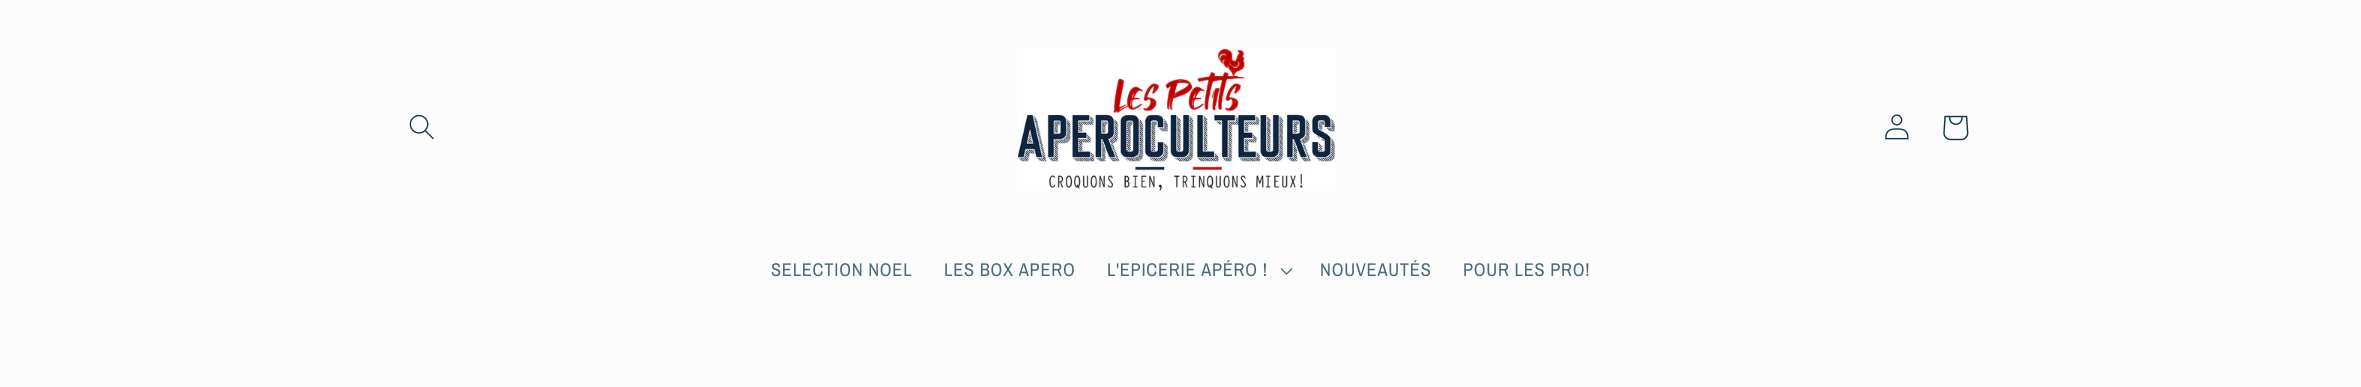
#include <cairo.h>
#include <math.h>
#include <stddef.h>


static void set_color(cairo_t *cr, unsigned color) {
    cairo_set_source_rgb(cr, (color >> 16) / 255.0, (color >> 8 & 255) / 255.0, (color & 255) / 255.0);
}

static void draw_spaced(cairo_t *cr, double x, double y, const char *s, double letter, double word) {
    cairo_move_to(cr, x, y);
    while (*s) {
        char ch[5] = {0};
        int n = 0;
        do ch[n++] = *s++; while ((*s & 0xC0) == 0x80);
        cairo_show_text(cr, ch);
        cairo_rel_move_to(cr, letter + word * (*ch == ' '), 0);
    }
}

static void draw_image(cairo_t *cr, const char *path, double x, double y, double w, double h) {
    cairo_surface_t *image = cairo_image_surface_create_from_png(path);
    cairo_save(cr);
    cairo_set_source_surface(cr, image, x, y);
    cairo_rectangle(cr, x, y, w, h);
    cairo_fill(cr);
    cairo_restore(cr);
    cairo_surface_destroy(image);
}

int main(void) {
    cairo_surface_t *surface = cairo_image_surface_create(CAIRO_FORMAT_RGB24, 2361, 387);
    cairo_t *cr = cairo_create(surface);
    cairo_font_options_t *options = cairo_font_options_create();
    cairo_font_options_set_hint_metrics(options, CAIRO_HINT_METRICS_OFF);
    cairo_font_options_set_hint_style(options, CAIRO_HINT_STYLE_NONE);
    cairo_set_font_options(cr, options);
    cairo_set_miter_limit(cr, 4);
    set_color(cr, 0xFCFCFC);
    cairo_paint(cr);
    draw_image(cr, "assets/img1.png", 409, 114, 25, 26);
    draw_image(cr, "assets/img2.png", 1017, 47, 319, 144);
    draw_image(cr, "assets/img3.png", 1885, 114, 24, 26);
    draw_image(cr, "assets/img4.png", 1943, 115, 26, 26);
    cairo_select_font_face(cr, "Archivo Narrow", CAIRO_FONT_SLANT_NORMAL, CAIRO_FONT_WEIGHT_NORMAL);
    cairo_set_font_size(cr, 18.4);
    set_color(cr, 0x4B6A75);
    draw_spaced(cr, 771, 276, "SELECTION NOEL", 0.75, 0);
    draw_spaced(cr, 944, 276, "LES BOX APERO", 0.75, 0);
    draw_spaced(cr, 1107, 276, "L'EPICERIE APÉRO !", 0.75, 0);
    draw_image(cr, "assets/img5.png", 1280, 268, 13, 7);
    draw_spaced(cr, 1320, 276, "NOUVEAUTÉS", 0.75, 0);
    draw_spaced(cr, 1463, 276, "POUR LES PRO!", 0.75, 0);
    cairo_surface_write_to_png(surface, "output.png");
    cairo_font_options_destroy(options);
    cairo_destroy(cr);
    cairo_surface_destroy(surface);
    return 0;
}
